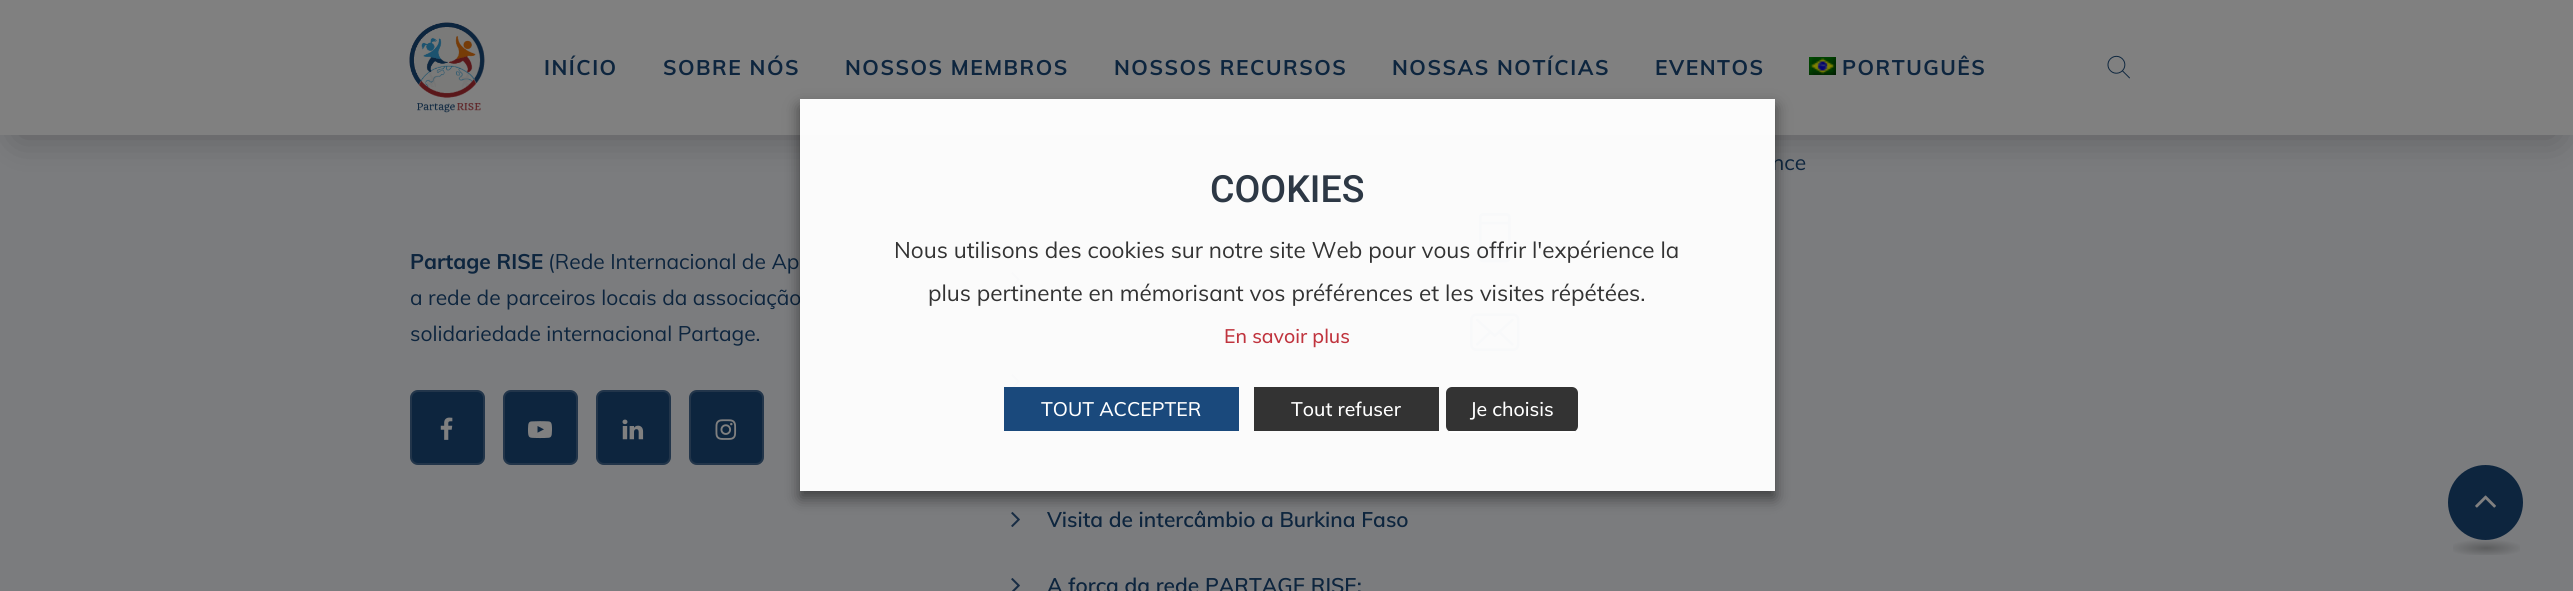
#include <cairo.h>
#include <math.h>
#include <stddef.h>


static void set_color(cairo_t *cr, unsigned color) {
    cairo_set_source_rgb(cr, (color >> 16) / 255.0, (color >> 8 & 255) / 255.0, (color & 255) / 255.0);
}

static void draw_text(cairo_t *cr, double x, double y, const char *s, const char *family, double size, int italic, int bold, unsigned color) {
    cairo_select_font_face(cr, family, italic ? CAIRO_FONT_SLANT_ITALIC : CAIRO_FONT_SLANT_NORMAL,
        bold ? CAIRO_FONT_WEIGHT_BOLD : CAIRO_FONT_WEIGHT_NORMAL);
    cairo_set_font_size(cr, size);
    set_color(cr, color);
    cairo_move_to(cr, x, y);
    cairo_show_text(cr, s);
}

static void draw_spaced(cairo_t *cr, double x, double y, const char *s, double letter, double word) {
    cairo_move_to(cr, x, y);
    while (*s) {
        char ch[5] = {0};
        int n = 0;
        do ch[n++] = *s++; while ((*s & 0xC0) == 0x80);
        cairo_show_text(cr, ch);
        cairo_rel_move_to(cr, letter + word * (*ch == ' '), 0);
    }
}

static void fill_rect(cairo_t *cr, double x, double y, double w, double h, unsigned color) {
    set_color(cr, color);
    cairo_rectangle(cr, x, y, w, h);
    cairo_fill(cr);
}

static void rounded_rect(cairo_t *cr, double x, double y, double w, double h, double r) {
    cairo_new_sub_path(cr);
    cairo_arc(cr, x + w - r, y + h - r, r, 0, M_PI / 2);
    cairo_arc(cr, x + r, y + h - r, r, M_PI / 2, M_PI);
    cairo_arc(cr, x + r, y + r, r, M_PI, 1.5 * M_PI);
    cairo_arc(cr, x + w - r, y + r, r, 1.5 * M_PI, 2 * M_PI);
    cairo_close_path(cr);
}

static void draw_shadow(cairo_t *cr, double x, double y, double w, double h, double r, double blur, double alpha) {
    cairo_push_group_with_content(cr, CAIRO_CONTENT_ALPHA);
    cairo_set_operator(cr, CAIRO_OPERATOR_SOURCE);
    for (int i = 15; i >= -15 && fmin(w, h) + blur * i / 3 > 0; i -= 2) {
        double e = blur * i / 6;
        cairo_set_source_rgba(cr, 0, 0, 0, alpha * erfc((i - 1) / 8.5) / 2);
        rounded_rect(cr, x - e, y - e, w + 2 * e, h + 2 * e, fmax(0, fmin(r + e + blur * .6, fmin(w, h) / 2 + e)));
        cairo_fill(cr);
    }
    cairo_pattern_t *soft = cairo_pop_group(cr);
    cairo_mask(cr, soft);
    cairo_pattern_destroy(soft);
}

static void draw_image(cairo_t *cr, const char *path, double x, double y, double w, double h) {
    cairo_surface_t *image = cairo_image_surface_create_from_png(path);
    cairo_save(cr);
    cairo_set_source_surface(cr, image, x, y);
    cairo_rectangle(cr, x, y, w, h);
    cairo_fill(cr);
    cairo_restore(cr);
    cairo_surface_destroy(image);
}

int main(void) {
    cairo_surface_t *surface = cairo_image_surface_create(CAIRO_FORMAT_RGB24, 2573, 591);
    cairo_t *cr = cairo_create(surface);
    cairo_font_options_t *options = cairo_font_options_create();
    cairo_font_options_set_hint_metrics(options, CAIRO_HINT_METRICS_OFF);
    cairo_font_options_set_hint_style(options, CAIRO_HINT_STYLE_NONE);
    cairo_set_font_options(cr, options);
    cairo_set_miter_limit(cr, 4);
    cairo_pattern_t *gradient;
    set_color(cr, 0x7B7C7E);
    cairo_paint(cr);
    set_color(cr, 0x000000);
    draw_shadow(cr, 18, 38, 2538, 99, 0, 19, 0.25);
    fill_rect(cr, 0, 0, 2573, 135, 0x808080);
    draw_image(cr, "assets/img1.png", 409, 22, 76, 91);
    cairo_select_font_face(cr, "Muli", CAIRO_FONT_SLANT_NORMAL, CAIRO_FONT_WEIGHT_BOLD);
    cairo_set_font_size(cr, 21);
    set_color(cr, 0x0D253E);
    draw_spaced(cr, 544, 75, "INÍCIO", 1.5, 0);
    draw_spaced(cr, 663, 75, "SOBRE NÓS", 1.5, 0);
    draw_spaced(cr, 845, 75, "NOSSOS MEMBROS", 1.5, 0);
    draw_spaced(cr, 1114, 75, "NOSSOS RECURSOS", 1.5, 0);
    draw_spaced(cr, 1392, 75, "NOSSAS NOTÍCIAS", 1.5, 0);
    draw_spaced(cr, 1655, 75, "EVENTOS", 1.5, 0);
    draw_image(cr, "assets/img2.png", 1809, 57, 27, 18);
    draw_spaced(cr, 1842, 75, "PORTUGUÊS", 1.5, 0);
    draw_image(cr, "assets/img3.png", 2107, 55, 23, 24);
    draw_text(cr, 1772, 170, "nce", "Muli", 21, 0, 0, 0x0D253E);
    draw_image(cr, "assets/img4.png", 1478, 212, 33, 51);
    draw_image(cr, "assets/img5.png", 1470, 313, 50, 39);
    draw_text(cr, 410, 269, "Partage RISE", "Muli", 21, 0, 1, 0x0D253E);
    draw_text(cr, 548, 269, "(Rede Internacional de Ap", "Muli", 21, 0, 0, 0x0D253E);
    draw_text(cr, 410, 305, "a rede de parceiros locais da associação", "Muli", 21, 0, 0, 0x0D253E);
    draw_text(cr, 410, 341, "solidariedade internacional Partage.", "Muli", 21, 0, 0, 0x0D253E);
    rounded_rect(cr, 410, 390, 75, 75, 8);
    cairo_fill(cr);
    rounded_rect(cr, 411, 391, 73, 73, 7);
    cairo_set_source_rgba(cr, 0.502, 0.502, 0.502, 0.18);
    cairo_stroke(cr);
    draw_image(cr, "assets/img6.png", 440, 417, 13, 23);
    set_color(cr, 0x0D253E);
    rounded_rect(cr, 503, 390, 75, 75, 8);
    cairo_fill(cr);
    rounded_rect(cr, 504, 391, 73, 73, 7);
    cairo_set_source_rgba(cr, 0.502, 0.502, 0.502, 0.18);
    cairo_stroke(cr);
    draw_image(cr, "assets/img7.png", 528, 421, 24, 18);
    set_color(cr, 0x0D253E);
    rounded_rect(cr, 596, 390, 75, 75, 8);
    cairo_fill(cr);
    rounded_rect(cr, 597, 391, 73, 73, 7);
    cairo_set_source_rgba(cr, 0.502, 0.502, 0.502, 0.18);
    cairo_stroke(cr);
    draw_image(cr, "assets/img8.png", 622, 419, 22, 21);
    set_color(cr, 0x0D253E);
    rounded_rect(cr, 689, 390, 75, 75, 8);
    cairo_fill(cr);
    rounded_rect(cr, 690, 391, 73, 73, 7);
    cairo_set_source_rgba(cr, 0.502, 0.502, 0.502, 0.18);
    cairo_stroke(cr);
    draw_image(cr, "assets/img9.png", 715, 419, 22, 21);
    draw_image(cr, "assets/img10.png", 1011, 272, 9, 15);
    draw_image(cr, "assets/img11.png", 1011, 374, 9, 13);
    draw_image(cr, "assets/img10.png", 1011, 512, 9, 15);
    draw_text(cr, 1047, 527, "Visita de intercâmbio a Burkina Faso", "Muli SemiBold", 21, 0, 0, 0x0D253E);
    draw_image(cr, "assets/img11.png", 1011, 578, 9, 13);
    draw_text(cr, 1047, 593, "A força da rede PARTAGE RISE:", "Muli SemiBold", 21, 0, 0, 0x0D253E);
    cairo_save(cr);
    cairo_set_fill_rule(cr, CAIRO_FILL_RULE_EVEN_ODD);
    cairo_new_path(cr);
    cairo_move_to(cr, 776, 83);
    cairo_line_to(cr, 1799, 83);
    cairo_line_to(cr, 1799, 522);
    cairo_line_to(cr, 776, 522);
    cairo_close_path(cr);
    cairo_move_to(cr, 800, 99);
    cairo_line_to(cr, 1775, 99);
    cairo_line_to(cr, 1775, 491);
    cairo_line_to(cr, 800, 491);
    cairo_close_path(cr);
    cairo_clip(cr);
    set_color(cr, 0x000000);
    draw_shadow(cr, 800, 107, 975, 391, 0, 7.5, 0.5);
    cairo_restore(cr);
    cairo_set_source_rgba(cr, 1, 1, 1, 0.97);
    cairo_rectangle(cr, 800, 99, 975, 392);
    cairo_fill(cr);
    draw_text(cr, 1210, 202, "COOKIES", "Roboto Medium", 37.5, 0, 0, 0x2D3845);
    draw_text(cr, 894, 258, "Nous utilisons des cookies sur notre site Web pour vous offrir l'expérience la", "Muli", 22.5, 0, 0, 0x333333);
    draw_text(cr, 928, 301, "plus pertinente en mémorisant vos préférences et les visites répétées.", "Muli", 22.5, 0, 0, 0x333333);
    draw_text(cr, 1224, 343, "En savoir plus", "Muli Medium", 19.5, 0, 0, 0xC0343E);
    fill_rect(cr, 1004, 387, 235, 44, 0x1A497C);
    draw_text(cr, 1041, 416, "TOUT ACCEPTER", "Muli Medium", 19.5, 0, 0, 0xFFFFFF);
    fill_rect(cr, 1254, 387, 185, 44, 0x333333);
    draw_text(cr, 1291, 416, "Tout refuser", "Muli Medium", 19.5, 0, 0, 0xFFFFFF);
    set_color(cr, 0x333333);
    rounded_rect(cr, 1446, 387, 132, 45, 6);
    cairo_fill(cr);
    fill_rect(cr, 1449, 431, 126, 2, 0xFFFFFF);
    draw_text(cr, 1470, 416, "Je choisis", "Muli Medium", 19.5, 0, 0, 0xFFFFFF);
    set_color(cr, 0x0D253E);
    cairo_new_path(cr);
    cairo_arc(cr, 2485.5, 502.5, 37.5, 0, 2 * M_PI);
    cairo_fill(cr);
    draw_image(cr, "assets/img12.png", 2475, 495, 21, 13);
    gradient = cairo_pattern_create_radial(0, 0, 0, 0, 0, 1);
    cairo_pattern_set_matrix(gradient, &(cairo_matrix_t){1.0 / 48, 0, 0, 1.0 / 11, -1.0 * 2486 / 48, -1.0 * 548 / 11});
    cairo_pattern_add_color_stop_rgba(gradient, 0, 0.361, 0.365, 0.369, 1);
    cairo_pattern_add_color_stop_rgba(gradient, 0.8, 0.482, 0.486, 0.494, 1);
    cairo_set_source(cr, gradient);
    cairo_pattern_destroy(gradient);
    cairo_rectangle(cr, 2453, 540, 67, 15);
    cairo_fill(cr);
    cairo_surface_write_to_png(surface, "output.png");
    cairo_font_options_destroy(options);
    cairo_destroy(cr);
    cairo_surface_destroy(surface);
    return 0;
}
